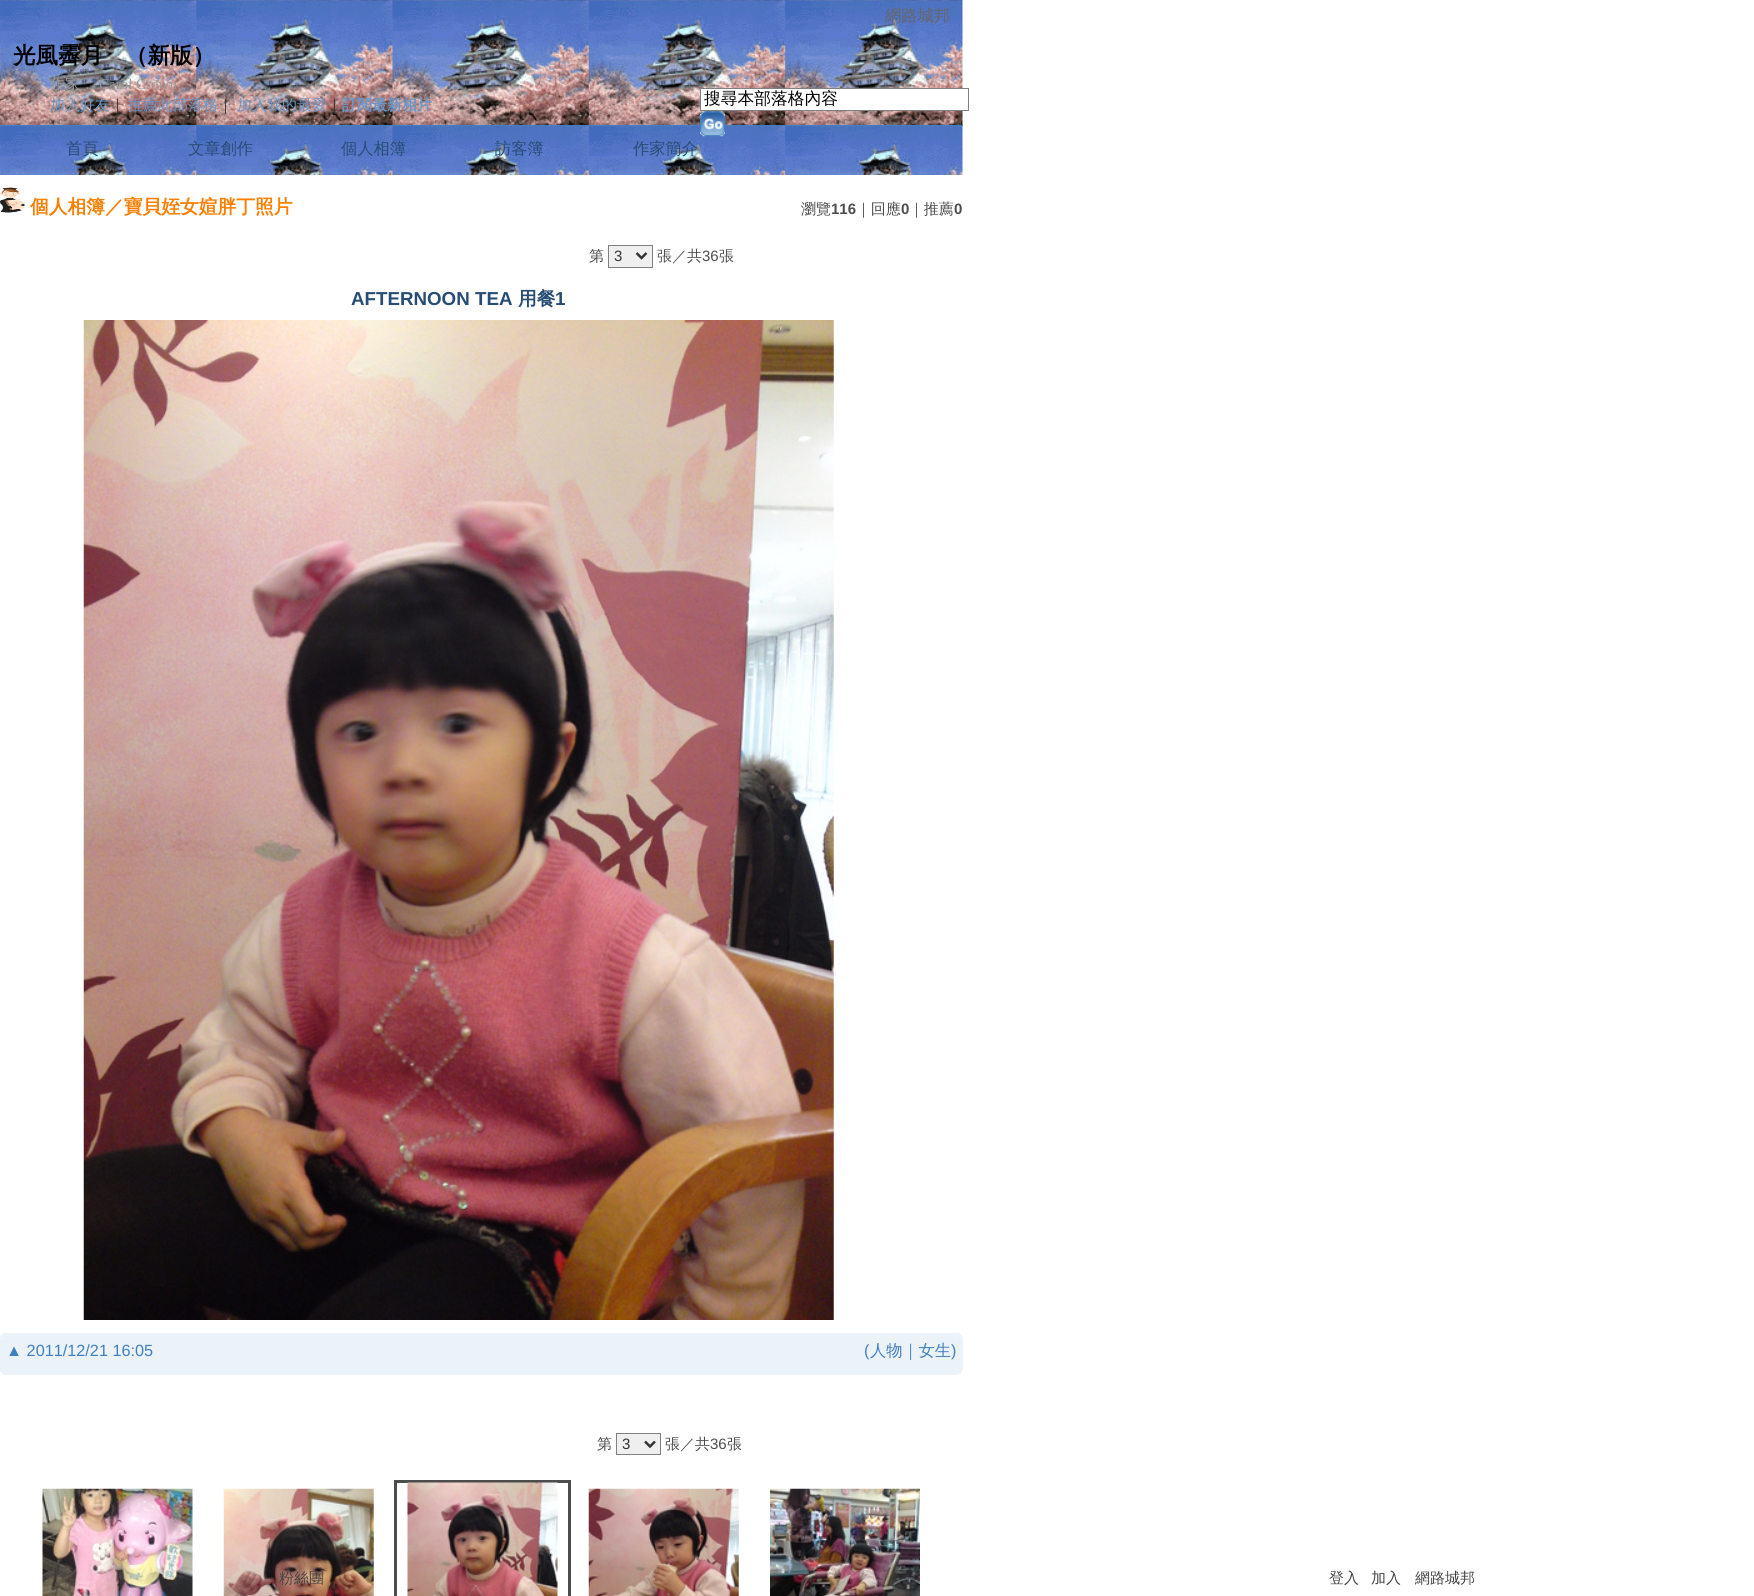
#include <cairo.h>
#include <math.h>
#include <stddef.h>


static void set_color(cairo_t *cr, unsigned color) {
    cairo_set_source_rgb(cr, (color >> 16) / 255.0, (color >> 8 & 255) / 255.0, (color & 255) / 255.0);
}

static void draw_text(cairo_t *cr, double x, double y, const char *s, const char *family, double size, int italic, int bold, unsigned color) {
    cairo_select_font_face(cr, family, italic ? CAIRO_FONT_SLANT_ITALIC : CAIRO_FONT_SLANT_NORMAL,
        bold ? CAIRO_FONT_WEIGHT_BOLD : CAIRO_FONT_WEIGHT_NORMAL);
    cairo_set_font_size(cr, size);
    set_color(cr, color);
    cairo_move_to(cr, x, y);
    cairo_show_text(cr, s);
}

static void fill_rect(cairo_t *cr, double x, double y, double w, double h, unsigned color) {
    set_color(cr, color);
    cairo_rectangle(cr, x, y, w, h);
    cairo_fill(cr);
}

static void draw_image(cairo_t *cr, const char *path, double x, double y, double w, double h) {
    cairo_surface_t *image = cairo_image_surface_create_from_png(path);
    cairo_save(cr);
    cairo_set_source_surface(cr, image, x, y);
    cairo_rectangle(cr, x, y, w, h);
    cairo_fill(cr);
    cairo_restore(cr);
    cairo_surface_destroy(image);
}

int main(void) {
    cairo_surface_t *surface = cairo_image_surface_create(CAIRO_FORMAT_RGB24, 1754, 1596);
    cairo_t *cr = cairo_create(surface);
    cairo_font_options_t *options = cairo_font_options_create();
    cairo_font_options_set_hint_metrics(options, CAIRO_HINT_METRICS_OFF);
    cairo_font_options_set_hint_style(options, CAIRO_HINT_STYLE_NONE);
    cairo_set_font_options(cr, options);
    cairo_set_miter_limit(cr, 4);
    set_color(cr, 0xFFFFFF);
    cairo_paint(cr);
    draw_image(cr, "assets/img1.png", 0, 0, 963, 175);
    draw_text(cr, 885, 21, "網路城邦", "WenQuanYi Zen Hei Medium", 16.25, 0, 0, 0x666666);
    draw_text(cr, 13, 63, "光風霽月", "WenQuanYi Zen Hei", 22.5, 0, 1, 0x000000);
    draw_text(cr, 125, 63, "（新版）", "WenQuanYi Zen Hei", 22.5, 0, 1, 0x000000);
    draw_text(cr, 50, 89, "作家：", "WenQuanYi Zen Hei Medium", 15, 0, 0, 0x999999);
    draw_text(cr, 99, 89, "Carol Crown", "Liberation Serif", 15, 0, 0, 0x999999);
    draw_text(cr, 50, 110, "加入好友", "WenQuanYi Zen Hei Medium", 15, 0, 0, 0x6698CC);
    draw_text(cr, 110, 110, "｜", "WenQuanYi Zen Hei Medium", 15, 0, 0, 0x333333);
    draw_text(cr, 128, 110, "推薦此部落格", "WenQuanYi Zen Hei Medium", 15, 0, 0, 0x6698CC);
    draw_text(cr, 218, 110, "｜", "WenQuanYi Zen Hei Medium", 15, 0, 0, 0x333333);
    draw_text(cr, 237, 110, "加入我的最愛", "WenQuanYi Zen Hei Medium", 15, 0, 0, 0x6698CC);
    draw_text(cr, 327, 110, "｜", "WenQuanYi Zen Hei Medium", 15, 0, 0, 0x333333);
    draw_text(cr, 342, 110, "訂閱最新相片", "WenQuanYi Zen Hei", 15, 0, 1, 0x6698CC);
    fill_rect(cr, 701, 89, 262, 21, 0xFFFFFF);
    cairo_rectangle(cr, 700.5, 88.5, 268, 22);
    set_color(cr, 0x808080);
    cairo_set_line_width(cr, 1);
    cairo_stroke(cr);
    draw_text(cr, 704, 104, "搜尋本部落格內容", "WenQuanYi Zen Hei Medium", 16.75, 0, 0, 0x000000);
    fill_rect(cr, 0, 125, 963, 1, 0x4180C0);
    draw_image(cr, "assets/img2.png", 700, 111, 25, 26);
    draw_text(cr, 66, 154, "首頁", "WenQuanYi Zen Hei Medium", 16.25, 0, 0, 0x274D74);
    draw_text(cr, 188, 154, "文章創作", "WenQuanYi Zen Hei Medium", 16.25, 0, 0, 0x274D74);
    draw_text(cr, 341, 154, "個人相簿", "WenQuanYi Zen Hei Medium", 16.25, 0, 0, 0x274D74);
    draw_text(cr, 495, 154, "訪客簿", "WenQuanYi Zen Hei Medium", 16.25, 0, 0, 0x274D74);
    draw_text(cr, 633, 154, "作家簡介", "WenQuanYi Zen Hei Medium", 16.25, 0, 0, 0x274D74);
    draw_image(cr, "assets/img3.png", 0, 187, 25, 26);
    draw_text(cr, 30, 213, "個人相簿／寶貝姪女媗胖丁照片", "WenQuanYi Zen Hei", 18.75, 0, 1, 0xFF7E00);
    draw_text(cr, 801, 214, "瀏覽", "WenQuanYi Zen Hei Medium", 15, 0, 0, 0x4D4D4D);
    draw_text(cr, 831, 214, "116", "Liberation Sans", 15, 0, 1, 0x4D4D4D);
    draw_text(cr, 856, 214, "｜回應", "WenQuanYi Zen Hei Medium", 15, 0, 0, 0x4D4D4D);
    draw_text(cr, 901, 214, "0", "Liberation Sans", 15, 0, 1, 0x4D4D4D);
    draw_text(cr, 909, 214, "｜推薦", "WenQuanYi Zen Hei Medium", 15, 0, 0, 0x4D4D4D);
    draw_text(cr, 954, 214, "0", "Liberation Sans", 15, 0, 1, 0x4D4D4D);
    draw_text(cr, 589, 261, "第", "WenQuanYi Zen Hei Medium", 15, 0, 0, 0x4D4D4D);
    set_color(cr, 0xEFEFEF);
    cairo_rectangle(cr, 608.5, 245.5, 44, 22);
    cairo_fill_preserve(cr);
    set_color(cr, 0x808080);
    cairo_stroke(cr);
    cairo_new_path(cr);
    cairo_move_to(cr, 636.5, 253);
    cairo_line_to(cr, 641.5, 258);
    cairo_line_to(cr, 646.5, 253);
    set_color(cr, 0x333333);
    cairo_set_line_width(cr, 2.5);
    cairo_stroke(cr);
    draw_text(cr, 614, 261, "3", "Liberation Sans", 15, 0, 0, 0x333333);
    draw_text(cr, 657, 261, "張／共", "WenQuanYi Zen Hei Medium", 15, 0, 0, 0x4D4D4D);
    draw_text(cr, 702, 261, "36", "Liberation Sans", 15, 0, 0, 0x4D4D4D);
    draw_text(cr, 719, 261, "張", "WenQuanYi Zen Hei Medium", 15, 0, 0, 0x4D4D4D);
    draw_text(cr, 351, 305, "AFTERNOON TEA", "Liberation Sans", 18.75, 0, 1, 0x274D74);
    draw_text(cr, 518, 305, "用餐", "WenQuanYi Zen Hei", 18.75, 0, 1, 0x274D74);
    draw_text(cr, 555, 305, "1", "Liberation Sans", 18.75, 0, 1, 0x274D74);
    draw_image(cr, "assets/img4.png", 83, 320, 751, 1000);
    draw_image(cr, "assets/img5.png", 0, 1332, 6, 7);
    fill_rect(cr, 6, 1333, 950, 6, 0xEBF2F8);
    draw_image(cr, "assets/img6.png", 956, 1332, 7, 7);
    fill_rect(cr, 0, 1339, 963, 30, 0xEBF2F8);
    draw_text(cr, 6, 1356, "▲ 2011/12/21 16:05", "Liberation Sans", 16.25, 0, 0, 0x4180C0);
    draw_text(cr, 864, 1356, "(", "Liberation Sans", 16.25, 0, 0, 0x4180C0);
    draw_text(cr, 870, 1356, "人物｜女生", "WenQuanYi Zen Hei Medium", 16.25, 0, 0, 0x4180C0);
    draw_text(cr, 951, 1356, ")", "Liberation Sans", 16.25, 0, 0, 0x4180C0);
    draw_image(cr, "assets/img7.png", 0, 1369, 6, 6);
    fill_rect(cr, 6, 1369, 950, 6, 0xEBF2F8);
    draw_image(cr, "assets/img8.png", 956, 1369, 7, 6);
    draw_text(cr, 597, 1449, "第", "WenQuanYi Zen Hei Medium", 15, 0, 0, 0x4D4D4D);
    set_color(cr, 0xEFEFEF);
    cairo_rectangle(cr, 616.5, 1433.5, 44, 21);
    cairo_fill_preserve(cr);
    set_color(cr, 0x808080);
    cairo_set_line_width(cr, 1);
    cairo_stroke(cr);
    cairo_new_path(cr);
    cairo_move_to(cr, 645, 1441.5);
    cairo_line_to(cr, 650, 1446.5);
    cairo_line_to(cr, 655, 1441.5);
    set_color(cr, 0x333333);
    cairo_set_line_width(cr, 2.5);
    cairo_stroke(cr);
    draw_text(cr, 622, 1449, "3", "Liberation Sans", 15, 0, 0, 0x333333);
    draw_text(cr, 665, 1449, "張／共", "WenQuanYi Zen Hei Medium", 15, 0, 0, 0x4D4D4D);
    draw_text(cr, 710, 1449, "36", "Liberation Sans", 15, 0, 0, 0x4D4D4D);
    draw_text(cr, 727, 1449, "張", "WenQuanYi Zen Hei Medium", 15, 0, 0, 0x4D4D4D);
    draw_image(cr, "assets/img9.png", 42, 1488, 151, 108);
    draw_image(cr, "assets/img10.png", 223, 1488, 151, 108);
    cairo_rectangle(cr, 395.5, 1481.5, 174, 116);
    cairo_set_line_width(cr, 3);
    cairo_stroke(cr);
    draw_image(cr, "assets/img11.png", 407, 1482, 151, 114);
    draw_image(cr, "assets/img12.png", 588, 1488, 151, 108);
    draw_image(cr, "assets/img13.png", 770, 1488, 150, 108);
    draw_text(cr, 279, 1583, "粉絲團", "WenQuanYi Zen Hei Medium", 15, 0, 0, 0x444444);
    draw_text(cr, 1329, 1583, "登入", "WenQuanYi Zen Hei Medium", 15, 0, 0, 0x444444);
    draw_text(cr, 1371, 1583, "加入", "WenQuanYi Zen Hei Medium", 15, 0, 0, 0x444444);
    draw_text(cr, 1415, 1583, "網路城邦", "WenQuanYi Zen Hei Medium", 15, 0, 0, 0x444444);
    cairo_surface_write_to_png(surface, "output.png");
    cairo_font_options_destroy(options);
    cairo_destroy(cr);
    cairo_surface_destroy(surface);
    return 0;
}
